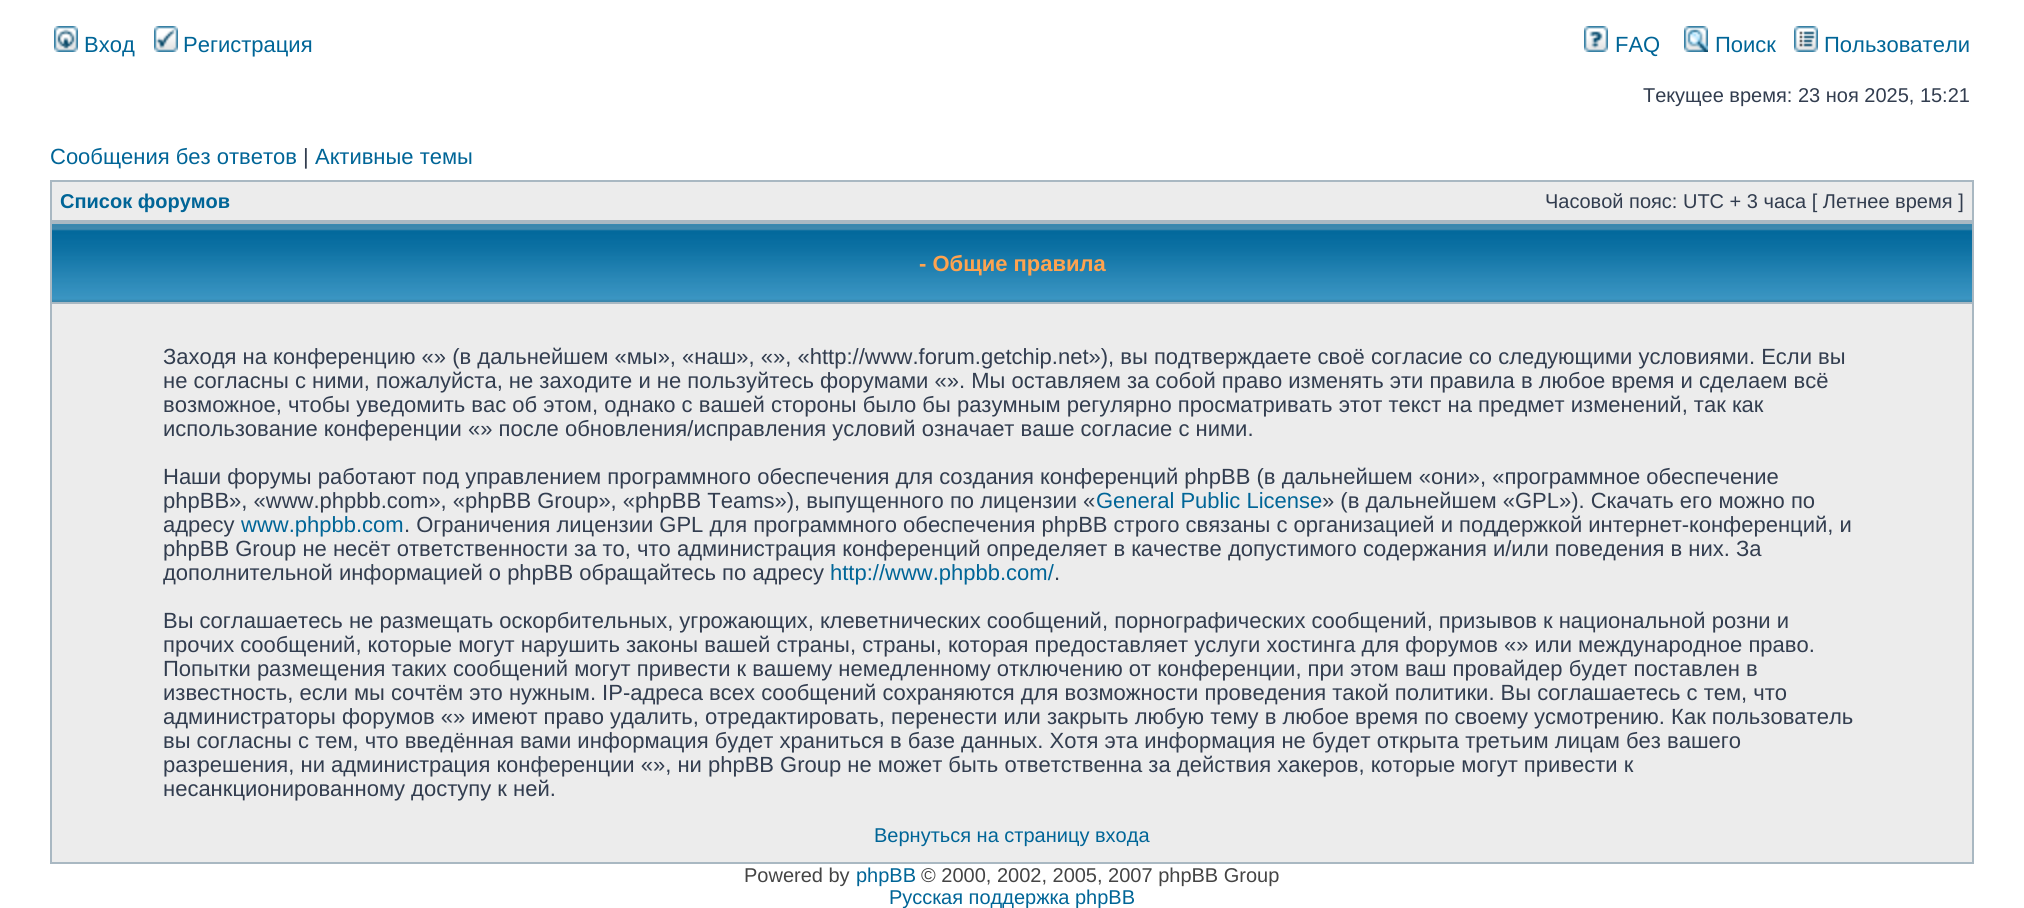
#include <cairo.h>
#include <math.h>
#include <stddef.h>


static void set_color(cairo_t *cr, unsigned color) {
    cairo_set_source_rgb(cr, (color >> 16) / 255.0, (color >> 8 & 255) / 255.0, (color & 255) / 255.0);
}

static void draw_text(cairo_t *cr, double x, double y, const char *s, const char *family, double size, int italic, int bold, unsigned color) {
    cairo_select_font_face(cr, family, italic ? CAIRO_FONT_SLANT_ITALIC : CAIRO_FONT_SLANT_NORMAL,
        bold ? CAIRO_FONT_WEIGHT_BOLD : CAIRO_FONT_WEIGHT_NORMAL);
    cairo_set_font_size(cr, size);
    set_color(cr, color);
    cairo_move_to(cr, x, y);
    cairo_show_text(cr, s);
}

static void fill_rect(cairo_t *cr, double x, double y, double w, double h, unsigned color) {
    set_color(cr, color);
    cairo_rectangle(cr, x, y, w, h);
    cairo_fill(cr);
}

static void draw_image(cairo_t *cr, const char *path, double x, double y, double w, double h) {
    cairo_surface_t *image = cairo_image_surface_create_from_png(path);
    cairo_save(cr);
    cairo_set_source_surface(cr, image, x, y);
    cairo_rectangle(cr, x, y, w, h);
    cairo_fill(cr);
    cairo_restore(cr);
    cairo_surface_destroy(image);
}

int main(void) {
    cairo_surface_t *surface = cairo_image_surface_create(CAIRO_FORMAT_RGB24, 2024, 908);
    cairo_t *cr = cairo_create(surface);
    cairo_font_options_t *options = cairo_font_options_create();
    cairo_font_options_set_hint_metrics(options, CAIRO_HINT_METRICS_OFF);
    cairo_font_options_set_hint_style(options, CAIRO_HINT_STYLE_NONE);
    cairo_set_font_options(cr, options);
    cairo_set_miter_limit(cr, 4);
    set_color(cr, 0xFFFFFF);
    cairo_paint(cr);
    draw_image(cr, "assets/img1.png", 54, 26, 24, 26);
    draw_text(cr, 84, 52, "Вход", "Liberation Sans", 22, 0, 0, 0x006597);
    draw_image(cr, "assets/img2.png", 154, 26, 24, 26);
    draw_text(cr, 183, 52, "Регистрация", "Liberation Sans", 22, 0, 0, 0x006597);
    draw_image(cr, "assets/img3.png", 1584, 26, 24, 26);
    draw_text(cr, 1615, 52, "FAQ", "Liberation Sans", 22, 0, 0, 0x006597);
    draw_image(cr, "assets/img4.png", 1684, 26, 24, 26);
    draw_text(cr, 1715, 52, "Поиск", "Liberation Sans", 22, 0, 0, 0x006597);
    draw_image(cr, "assets/img5.png", 1794, 26, 24, 26);
    draw_text(cr, 1824, 52, "Пользователи", "Liberation Sans", 22, 0, 0, 0x006597);
    draw_text(cr, 1643, 102, "Текущее время: 23 ноя 2025, 15:21", "Liberation Sans", 20, 0, 0, 0x323D4F);
    draw_text(cr, 50, 164, "Сообщения без ответов", "Liberation Sans", 22, 0, 0, 0x006597);
    draw_text(cr, 303, 164, "|", "Liberation Sans", 22, 0, 0, 0x323D4F);
    draw_text(cr, 315, 164, "Активные темы", "Liberation Sans", 22, 0, 0, 0x006597);
    fill_rect(cr, 50, 180, 1924, 684, 0xA9B8C2);
    fill_rect(cr, 52, 182, 1920, 38, 0xECECEC);
    draw_text(cr, 60, 208, "Список форумов", "Liberation Sans", 20, 0, 1, 0x006597);
    draw_text(cr, 1545, 208, "Часовой пояс: UTC + 3 часа [ Летнее время ]", "Liberation Sans", 20, 0, 0, 0x323D4F);
    draw_image(cr, "assets/img6.png", 52, 224, 1920, 78);
    draw_text(cr, 919, 271, "- Общие правила", "Liberation Sans", 22, 0, 1, 0xFFA34F);
    fill_rect(cr, 52, 304, 1920, 558, 0xECECEC);
    draw_text(cr, 163, 364, "Заходя на конференцию «» (в дальнейшем «мы», «наш», «», «http://www.forum.getchip.net»), вы подтверждаете своё согласие со следующими условиями. Если вы", "Liberation Sans", 22, 0, 0, 0x323D4F);
    draw_text(cr, 163, 388, "не согласны с ними, пожалуйста, не заходите и не пользуйтесь форумами «». Мы оставляем за собой право изменять эти правила в любое время и сделаем всё", "Liberation Sans", 22, 0, 0, 0x323D4F);
    draw_text(cr, 163, 412, "возможное, чтобы уведомить вас об этом, однако с вашей стороны было бы разумным регулярно просматривать этот текст на предмет изменений, так как", "Liberation Sans", 22, 0, 0, 0x323D4F);
    draw_text(cr, 163, 436, "использование конференции «» после обновления/исправления условий означает ваше согласие с ними.", "Liberation Sans", 22, 0, 0, 0x323D4F);
    draw_text(cr, 163, 484, "Наши форумы работают под управлением программного обеспечения для создания конференций phpBB (в дальнейшем «они», «программное обеспечение", "Liberation Sans", 22, 0, 0, 0x323D4F);
    draw_text(cr, 163, 508, "phpBB», «www.phpbb.com», «phpBB Group», «phpBB Teams»), выпущенного по лицензии «", "Liberation Sans", 22, 0, 0, 0x323D4F);
    draw_text(cr, 1096, 508, "General Public License", "Liberation Sans", 22, 0, 0, 0x006597);
    draw_text(cr, 1322, 508, "» (в дальнейшем «GPL»). Скачать его можно по", "Liberation Sans", 22, 0, 0, 0x323D4F);
    draw_text(cr, 163, 532, "адресу", "Liberation Sans", 22, 0, 0, 0x323D4F);
    draw_text(cr, 241, 532, "www.phpbb.com", "Liberation Sans", 22, 0, 0, 0x006597);
    draw_text(cr, 404, 532, ". Ограничения лицензии GPL для программного обеспечения phpBB строго связаны с организацией и поддержкой интернет-конференций, и", "Liberation Sans", 22, 0, 0, 0x323D4F);
    draw_text(cr, 163, 556, "phpBB Group не несёт ответственности за то, что администрация конференций определяет в качестве допустимого содержания и/или поведения в них. За", "Liberation Sans", 22, 0, 0, 0x323D4F);
    draw_text(cr, 163, 580, "дополнительной информацией о phpBB обращайтесь по адресу", "Liberation Sans", 22, 0, 0, 0x323D4F);
    draw_text(cr, 830, 580, "http://www.phpbb.com/", "Liberation Sans", 22, 0, 0, 0x006597);
    draw_text(cr, 1054, 580, ".", "Liberation Sans", 22, 0, 0, 0x323D4F);
    draw_text(cr, 163, 628, "Вы соглашаетесь не размещать оскорбительных, угрожающих, клеветнических сообщений, порнографических сообщений, призывов к национальной розни и", "Liberation Sans", 22, 0, 0, 0x323D4F);
    draw_text(cr, 163, 652, "прочих сообщений, которые могут нарушить законы вашей страны, страны, которая предоставляет услуги хостинга для форумов «» или международное право.", "Liberation Sans", 22, 0, 0, 0x323D4F);
    draw_text(cr, 163, 676, "Попытки размещения таких сообщений могут привести к вашему немедленному отключению от конференции, при этом ваш провайдер будет поставлен в", "Liberation Sans", 22, 0, 0, 0x323D4F);
    draw_text(cr, 163, 700, "известность, если мы сочтём это нужным. IP-адреса всех сообщений сохраняются для возможности проведения такой политики. Вы соглашаетесь с тем, что", "Liberation Sans", 22, 0, 0, 0x323D4F);
    draw_text(cr, 163, 724, "администраторы форумов «» имеют право удалить, отредактировать, перенести или закрыть любую тему в любое время по своему усмотрению. Как пользователь", "Liberation Sans", 22, 0, 0, 0x323D4F);
    draw_text(cr, 163, 748, "вы согласны с тем, что введённая вами информация будет храниться в базе данных. Хотя эта информация не будет открыта третьим лицам без вашего", "Liberation Sans", 22, 0, 0, 0x323D4F);
    draw_text(cr, 163, 772, "разрешения, ни администрация конференции «», ни phpBB Group не может быть ответственна за действия хакеров, которые могут привести к", "Liberation Sans", 22, 0, 0, 0x323D4F);
    draw_text(cr, 163, 796, "несанкционированному доступу к ней.", "Liberation Sans", 22, 0, 0, 0x323D4F);
    draw_text(cr, 874, 842, "Вернуться на страницу входа", "Liberation Sans", 20, 0, 0, 0x006597);
    draw_text(cr, 744, 882, "Powered by", "Liberation Sans", 20, 0, 0, 0x444444);
    draw_text(cr, 856, 882, "phpBB", "Liberation Sans", 20, 0, 0, 0x006597);
    draw_text(cr, 921, 882, "© 2000, 2002, 2005, 2007 phpBB Group", "Liberation Sans", 20, 0, 0, 0x444444);
    draw_text(cr, 889, 904, "Русская поддержка phpBB", "Liberation Sans", 20, 0, 0, 0x006597);
    cairo_surface_write_to_png(surface, "output.png");
    cairo_font_options_destroy(options);
    cairo_destroy(cr);
    cairo_surface_destroy(surface);
    return 0;
}
